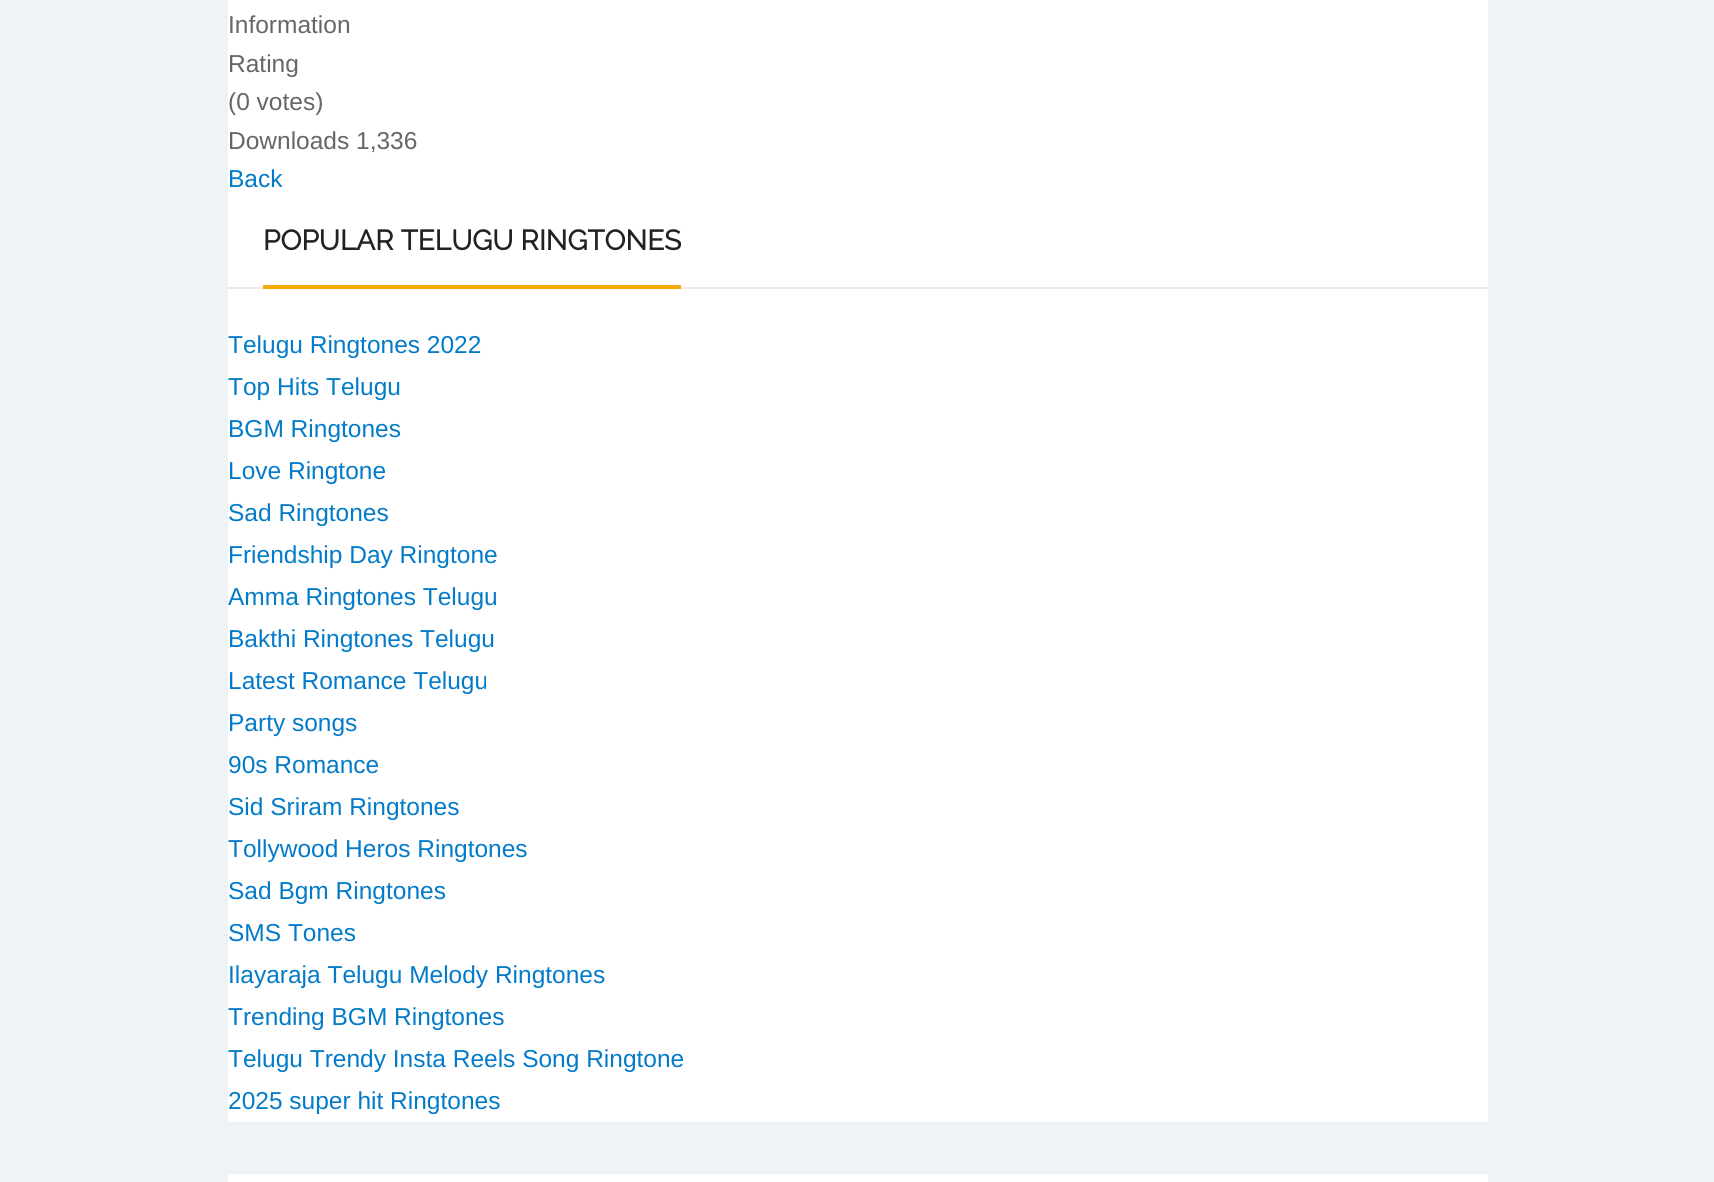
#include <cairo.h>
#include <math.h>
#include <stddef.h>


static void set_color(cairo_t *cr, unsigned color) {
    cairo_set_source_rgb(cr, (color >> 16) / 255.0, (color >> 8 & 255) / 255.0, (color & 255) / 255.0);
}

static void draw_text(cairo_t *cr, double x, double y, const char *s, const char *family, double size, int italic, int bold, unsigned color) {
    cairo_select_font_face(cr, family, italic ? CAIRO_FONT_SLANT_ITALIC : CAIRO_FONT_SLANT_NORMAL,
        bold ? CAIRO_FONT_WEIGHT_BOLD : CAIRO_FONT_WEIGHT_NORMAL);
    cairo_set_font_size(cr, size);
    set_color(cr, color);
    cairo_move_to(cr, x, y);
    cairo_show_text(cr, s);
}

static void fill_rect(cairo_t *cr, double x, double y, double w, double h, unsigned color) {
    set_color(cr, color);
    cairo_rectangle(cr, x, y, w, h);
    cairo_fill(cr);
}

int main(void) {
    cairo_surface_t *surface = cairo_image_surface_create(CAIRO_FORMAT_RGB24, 1714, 1182);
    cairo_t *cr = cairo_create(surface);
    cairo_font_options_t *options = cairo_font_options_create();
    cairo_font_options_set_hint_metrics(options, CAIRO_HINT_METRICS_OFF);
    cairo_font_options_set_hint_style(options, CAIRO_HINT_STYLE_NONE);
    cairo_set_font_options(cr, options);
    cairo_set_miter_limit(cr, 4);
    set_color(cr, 0xEEF3F6);
    cairo_paint(cr);
    fill_rect(cr, 228, 0, 1260, 1122, 0xFFFFFF);
    draw_text(cr, 228, 33, "Information", "Liberation Sans", 24.5, 0, 0, 0x666666);
    draw_text(cr, 228, 72, "Rating", "Liberation Sans", 24.5, 0, 0, 0x666666);
    draw_text(cr, 228, 110, "(0 votes)", "Liberation Sans", 24.5, 0, 0, 0x666666);
    draw_text(cr, 228, 149, "Downloads 1,336", "Liberation Sans", 24.5, 0, 0, 0x666666);
    draw_text(cr, 228, 187, "Back", "Liberation Sans", 24.5, 0, 0, 0x037BC8);
    fill_rect(cr, 228, 287, 1260, 2, 0xEBEBEB);
    fill_rect(cr, 263, 285, 418, 4, 0xF5AA06);
    draw_text(cr, 263, 250, "POPULAR TELUGU RINGTONES", "Raleway", 28, 0, 1, 0x222222);
    draw_text(cr, 228, 353, "Telugu Ringtones 2022", "Liberation Sans", 24.5, 0, 0, 0x037BC8);
    draw_text(cr, 228, 395, "Top Hits Telugu", "Liberation Sans", 24.5, 0, 0, 0x037BC8);
    draw_text(cr, 228, 437, "BGM Ringtones", "Liberation Sans", 24.5, 0, 0, 0x037BC8);
    draw_text(cr, 228, 479, "Love Ringtone", "Liberation Sans", 24.5, 0, 0, 0x037BC8);
    draw_text(cr, 228, 521, "Sad Ringtones", "Liberation Sans", 24.5, 0, 0, 0x037BC8);
    draw_text(cr, 228, 563, "Friendship Day Ringtone", "Liberation Sans", 24.5, 0, 0, 0x037BC8);
    draw_text(cr, 228, 605, "Amma Ringtones Telugu", "Liberation Sans", 24.5, 0, 0, 0x037BC8);
    draw_text(cr, 228, 647, "Bakthi Ringtones Telugu", "Liberation Sans", 24.5, 0, 0, 0x037BC8);
    draw_text(cr, 228, 689, "Latest Romance Telugu", "Liberation Sans", 24.5, 0, 0, 0x037BC8);
    draw_text(cr, 228, 731, "Party songs", "Liberation Sans", 24.5, 0, 0, 0x037BC8);
    draw_text(cr, 228, 773, "90s Romance", "Liberation Sans", 24.5, 0, 0, 0x037BC8);
    draw_text(cr, 228, 815, "Sid Sriram Ringtones", "Liberation Sans", 24.5, 0, 0, 0x037BC8);
    draw_text(cr, 228, 857, "Tollywood Heros Ringtones", "Liberation Sans", 24.5, 0, 0, 0x037BC8);
    draw_text(cr, 228, 899, "Sad Bgm Ringtones", "Liberation Sans", 24.5, 0, 0, 0x037BC8);
    draw_text(cr, 228, 941, "SMS Tones", "Liberation Sans", 24.5, 0, 0, 0x037BC8);
    draw_text(cr, 228, 983, "Ilayaraja Telugu Melody Ringtones", "Liberation Sans", 24.5, 0, 0, 0x037BC8);
    draw_text(cr, 228, 1025, "Trending BGM Ringtones", "Liberation Sans", 24.5, 0, 0, 0x037BC8);
    draw_text(cr, 228, 1067, "Telugu Trendy Insta Reels Song Ringtone", "Liberation Sans", 24.5, 0, 0, 0x037BC8);
    draw_text(cr, 228, 1109, "2025 super hit Ringtones", "Liberation Sans", 24.5, 0, 0, 0x037BC8);
    fill_rect(cr, 228, 1174, 1260, 8, 0xFFFFFF);
    cairo_surface_write_to_png(surface, "output.png");
    cairo_font_options_destroy(options);
    cairo_destroy(cr);
    cairo_surface_destroy(surface);
    return 0;
}
